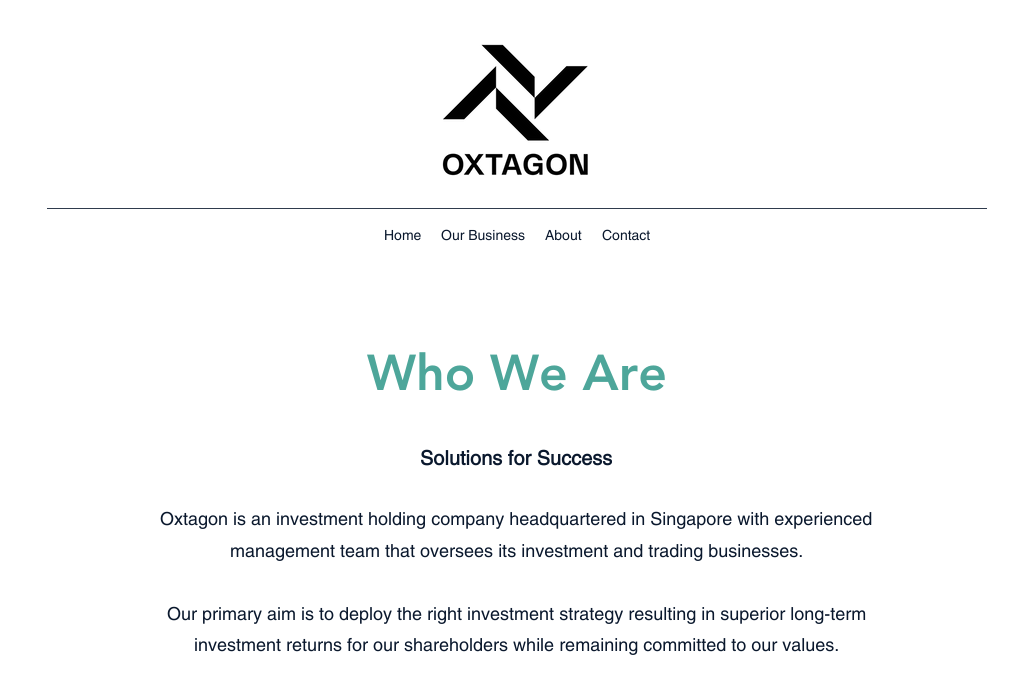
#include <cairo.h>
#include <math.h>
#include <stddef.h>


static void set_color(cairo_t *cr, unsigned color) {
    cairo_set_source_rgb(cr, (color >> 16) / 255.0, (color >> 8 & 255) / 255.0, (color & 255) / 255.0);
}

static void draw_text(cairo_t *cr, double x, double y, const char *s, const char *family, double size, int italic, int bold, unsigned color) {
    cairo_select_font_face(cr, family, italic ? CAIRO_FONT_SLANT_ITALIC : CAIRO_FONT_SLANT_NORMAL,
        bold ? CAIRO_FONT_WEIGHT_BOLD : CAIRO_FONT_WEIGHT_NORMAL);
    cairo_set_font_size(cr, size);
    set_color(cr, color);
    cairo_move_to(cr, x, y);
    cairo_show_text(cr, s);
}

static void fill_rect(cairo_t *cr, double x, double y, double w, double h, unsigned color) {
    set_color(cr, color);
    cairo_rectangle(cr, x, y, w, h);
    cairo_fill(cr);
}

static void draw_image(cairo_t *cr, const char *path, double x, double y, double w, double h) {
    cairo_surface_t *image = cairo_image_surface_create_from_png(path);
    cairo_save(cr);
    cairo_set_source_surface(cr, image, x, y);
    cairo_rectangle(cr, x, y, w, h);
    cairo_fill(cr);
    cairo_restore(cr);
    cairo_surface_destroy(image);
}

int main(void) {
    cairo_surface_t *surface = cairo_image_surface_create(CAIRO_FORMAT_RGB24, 1033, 689);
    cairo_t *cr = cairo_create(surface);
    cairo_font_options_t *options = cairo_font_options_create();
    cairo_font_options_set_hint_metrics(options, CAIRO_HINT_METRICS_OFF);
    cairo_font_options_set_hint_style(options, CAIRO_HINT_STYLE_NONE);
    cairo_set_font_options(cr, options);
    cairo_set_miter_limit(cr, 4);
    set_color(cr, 0xFFFFFF);
    cairo_paint(cr);
    draw_image(cr, "assets/img1.png", 442, 44, 146, 132);
    fill_rect(cr, 47, 208, 940, 1, 0x2F3B4D);
    draw_text(cr, 384, 240, "Home", "helvetica", 14, 0, 0, 0x0A182D);
    draw_text(cr, 441, 240, "Our Business", "helvetica", 14, 0, 0, 0x0A182D);
    draw_text(cr, 545, 240, "About", "helvetica", 14, 0, 0, 0x0A182D);
    draw_text(cr, 602, 240, "Contact", "helvetica", 14, 0, 0, 0x0A182D);
    draw_text(cr, 367, 390, "Who We Are", "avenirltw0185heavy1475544 Black", 50, 0, 0, 0x4DA69A);
    draw_text(cr, 420, 465, "Solutions for Success", "helvetica", 20, 0, 1, 0x0A182D);
    draw_text(cr, 160, 525, "Oxtagon is an investment holding company headquartered in Singapore with experienced", "helvetica", 18, 0, 0, 0x0A182D);
    draw_text(cr, 230, 557, "management team that oversees its investment and trading businesses.", "helvetica", 18, 0, 0, 0x0A182D);
    draw_text(cr, 167, 620, "Our primary aim is to deploy the right investment strategy resulting in superior long-term", "helvetica", 18, 0, 0, 0x0A182D);
    draw_text(cr, 194, 651, "investment returns for our shareholders while remaining committed to our values.", "helvetica", 18, 0, 0, 0x0A182D);
    cairo_surface_write_to_png(surface, "output.png");
    cairo_font_options_destroy(options);
    cairo_destroy(cr);
    cairo_surface_destroy(surface);
    return 0;
}
